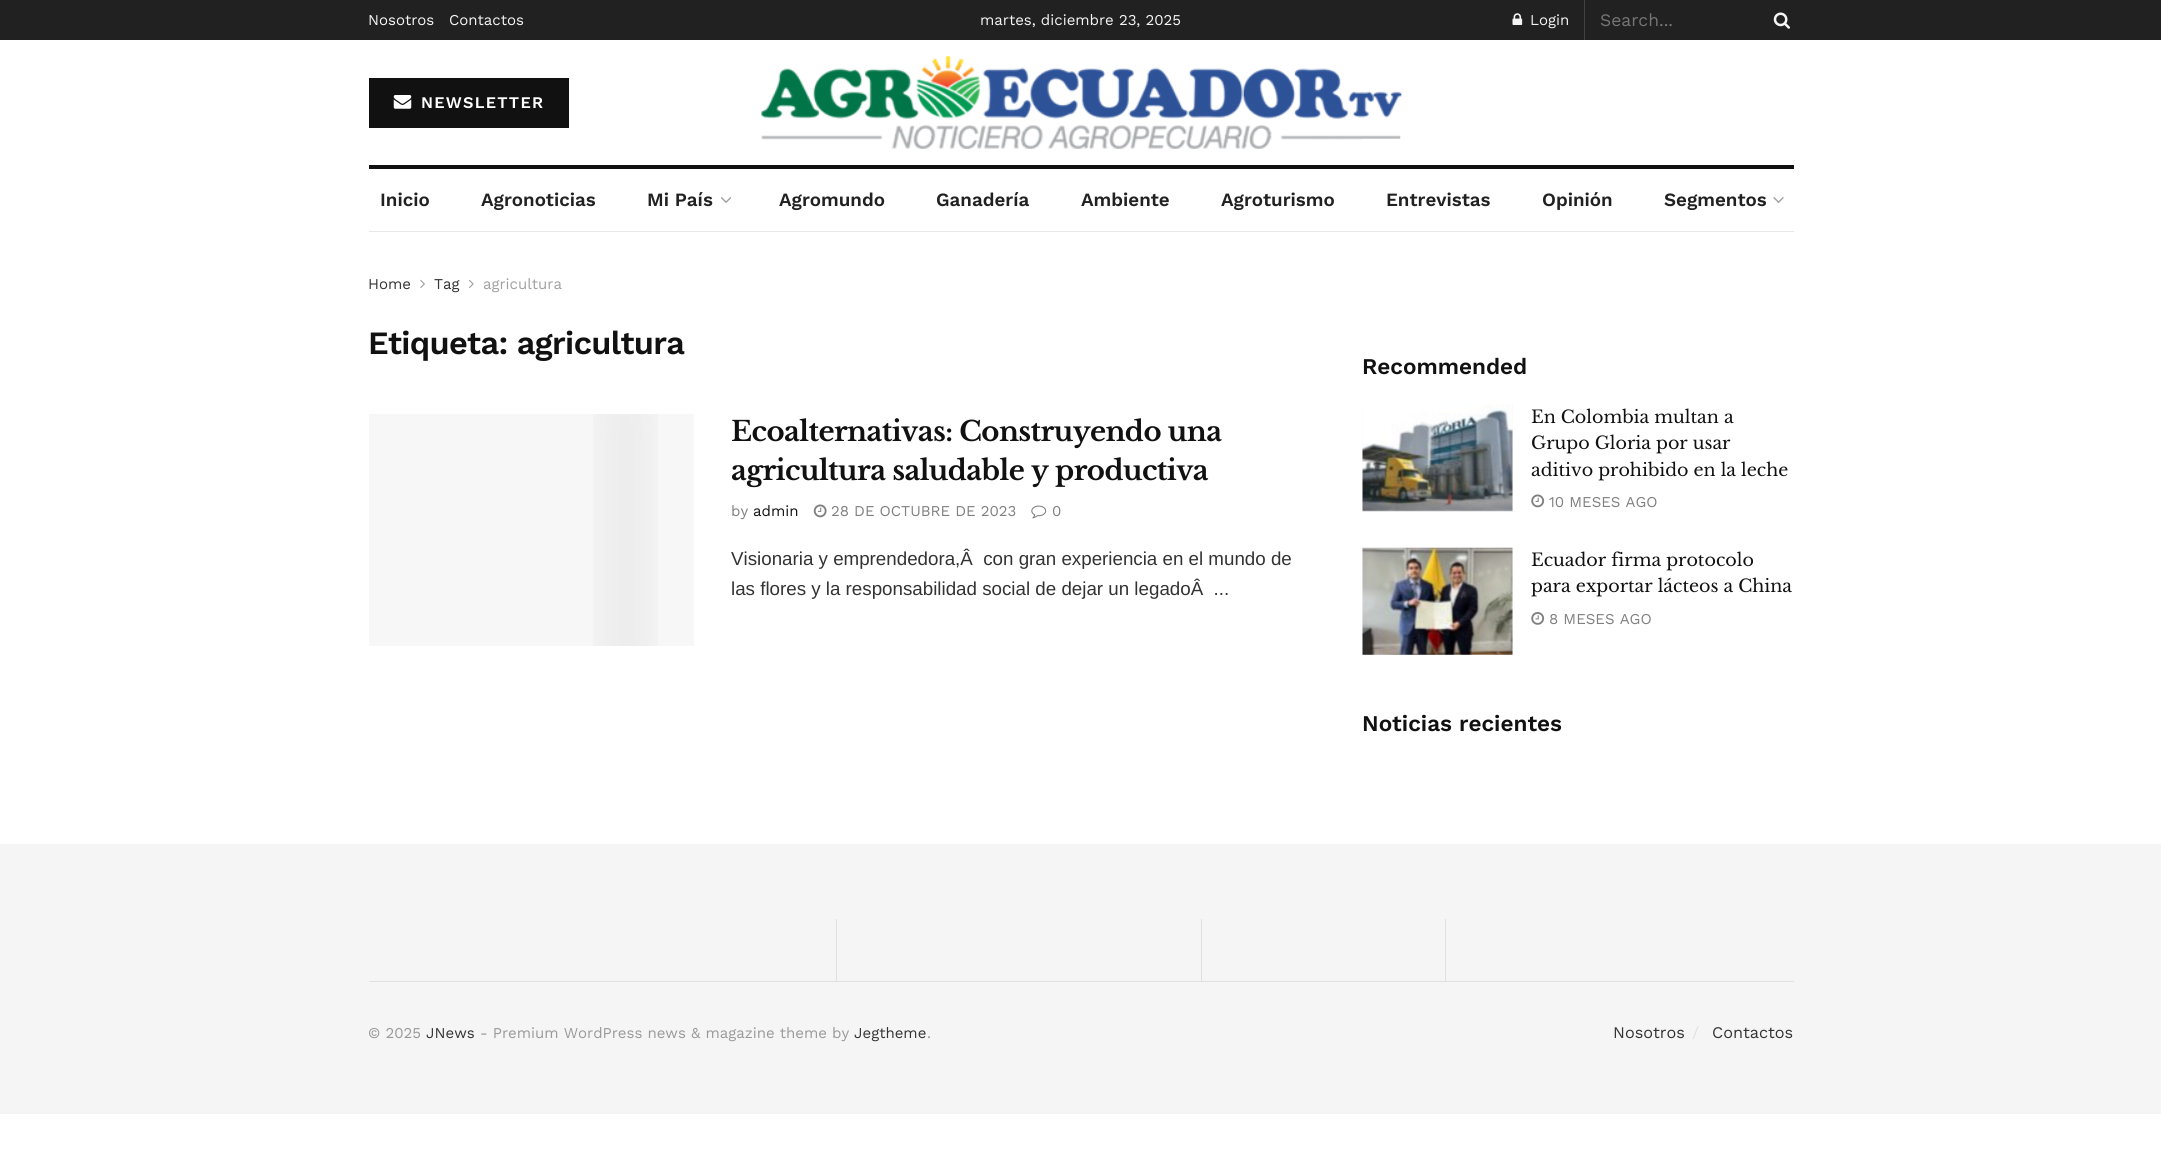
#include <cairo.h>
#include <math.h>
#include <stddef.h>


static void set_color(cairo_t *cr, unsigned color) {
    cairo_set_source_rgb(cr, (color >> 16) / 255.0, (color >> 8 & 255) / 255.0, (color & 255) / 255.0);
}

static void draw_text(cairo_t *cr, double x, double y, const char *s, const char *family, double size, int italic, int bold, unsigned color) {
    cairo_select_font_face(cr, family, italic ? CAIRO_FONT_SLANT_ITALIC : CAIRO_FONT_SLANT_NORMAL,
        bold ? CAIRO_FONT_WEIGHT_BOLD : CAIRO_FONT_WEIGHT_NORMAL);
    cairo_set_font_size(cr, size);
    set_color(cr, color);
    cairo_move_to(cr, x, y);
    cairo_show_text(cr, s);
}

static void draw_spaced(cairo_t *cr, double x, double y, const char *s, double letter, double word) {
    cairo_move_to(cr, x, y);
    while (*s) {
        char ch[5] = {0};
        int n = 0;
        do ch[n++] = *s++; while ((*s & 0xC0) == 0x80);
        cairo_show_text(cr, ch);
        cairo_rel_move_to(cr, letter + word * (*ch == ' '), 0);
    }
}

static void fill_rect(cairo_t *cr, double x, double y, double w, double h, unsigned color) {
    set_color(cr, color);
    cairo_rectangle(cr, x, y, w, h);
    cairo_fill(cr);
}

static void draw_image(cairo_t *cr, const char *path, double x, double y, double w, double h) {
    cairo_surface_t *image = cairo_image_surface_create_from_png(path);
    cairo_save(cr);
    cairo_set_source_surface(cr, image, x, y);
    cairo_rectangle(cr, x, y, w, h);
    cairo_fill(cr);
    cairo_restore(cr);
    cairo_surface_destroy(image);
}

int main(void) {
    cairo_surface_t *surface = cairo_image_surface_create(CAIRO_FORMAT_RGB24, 2161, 1151);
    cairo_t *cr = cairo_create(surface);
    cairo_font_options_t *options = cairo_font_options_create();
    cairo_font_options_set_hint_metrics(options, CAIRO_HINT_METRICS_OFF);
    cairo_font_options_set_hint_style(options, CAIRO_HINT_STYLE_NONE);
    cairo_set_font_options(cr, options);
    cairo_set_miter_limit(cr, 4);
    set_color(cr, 0xFFFFFF);
    cairo_paint(cr);
    fill_rect(cr, 0, 0, 2161, 40, 0x212121);
    draw_text(cr, 368, 25, "Nosotros", "Work Sans", 15, 0, 0, 0xF5F5F5);
    draw_text(cr, 449, 25, "Contactos", "Work Sans", 15, 0, 0, 0xF5F5F5);
    draw_text(cr, 980, 25, "martes, diciembre 23, 2025", "Work Sans", 15, 0, 0, 0xF5F5F5);
    fill_rect(cr, 1584, 0, 1, 40, 0x424242);
    draw_image(cr, "assets/img1.png", 1512, 13, 11, 12);
    draw_text(cr, 1530, 25, "Login", "Work Sans", 15, 0, 0, 0xF5F5F5);
    draw_text(cr, 1600, 26, "Search...", "Work Sans", 17.5, 0, 0, 0x757575);
    draw_image(cr, "assets/img2.png", 1773, 12, 17, 17);
    fill_rect(cr, 369, 78, 200, 50, 0x111111);
    draw_image(cr, "assets/img3.png", 393, 95, 19, 14);
    cairo_select_font_face(cr, "Work Sans SemiBold", CAIRO_FONT_SLANT_NORMAL, CAIRO_FONT_WEIGHT_NORMAL);
    cairo_set_font_size(cr, 16.25);
    set_color(cr, 0xFFFFFF);
    draw_spaced(cr, 421, 108, "NEWSLETTER", 1.25, 0);
    draw_image(cr, "assets/img4.png", 761, 56, 641, 93);
    fill_rect(cr, 369, 165, 1425, 4, 0x111111);
    fill_rect(cr, 369, 231, 1425, 1, 0xE8E8E8);
    draw_text(cr, 380, 206, "Inicio", "Work Sans SemiBold", 18.75, 0, 0, 0x212121);
    draw_text(cr, 481, 206, "Agronoticias", "Work Sans SemiBold", 18.75, 0, 0, 0x212121);
    draw_text(cr, 647, 206, "Mi País", "Work Sans SemiBold", 18.75, 0, 0, 0x212121);
    draw_image(cr, "assets/img5.png", 720, 197, 12, 6);
    draw_text(cr, 779, 206, "Agromundo", "Work Sans SemiBold", 18.75, 0, 0, 0x212121);
    draw_text(cr, 936, 206, "Ganadería", "Work Sans SemiBold", 18.75, 0, 0, 0x212121);
    draw_text(cr, 1081, 206, "Ambiente", "Work Sans SemiBold", 18.75, 0, 0, 0x212121);
    draw_text(cr, 1221, 206, "Agroturismo", "Work Sans SemiBold", 18.75, 0, 0, 0x212121);
    draw_text(cr, 1386, 206, "Entrevistas", "Work Sans SemiBold", 18.75, 0, 0, 0x212121);
    draw_text(cr, 1542, 206, "Opinión", "Work Sans SemiBold", 18.75, 0, 0, 0x212121);
    draw_text(cr, 1664, 206, "Segmentos", "Work Sans SemiBold", 18.75, 0, 0, 0x212121);
    draw_image(cr, "assets/img6.png", 1773, 197, 11, 6);
    draw_text(cr, 368, 289, "Home", "Work Sans", 15, 0, 0, 0x333333);
    draw_image(cr, "assets/img7.png", 420, 279, 5, 9);
    draw_text(cr, 434, 289, "Tag", "Work Sans", 15, 0, 0, 0x333333);
    draw_image(cr, "assets/img8.png", 468, 279, 6, 9);
    draw_text(cr, 483, 289, "agricultura", "Work Sans", 15, 0, 0, 0xA0A0A0);
    cairo_select_font_face(cr, "Work Sans SemiBold", CAIRO_FONT_SLANT_NORMAL, CAIRO_FONT_WEIGHT_NORMAL);
    cairo_set_font_size(cr, 32.5);
    set_color(cr, 0x111111);
    draw_spaced(cr, 368, 354, "Etiqueta: agricultura", -0.65, 0);
    fill_rect(cr, 369, 414, 325, 232, 0xF7F7F7);
    draw_image(cr, "assets/img9.png", 593, 414, 65, 232);
    cairo_select_font_face(cr, "Libre Baskerville", CAIRO_FONT_SLANT_NORMAL, CAIRO_FONT_WEIGHT_BOLD);
    cairo_set_font_size(cr, 27.5);
    set_color(cr, 0x111111);
    draw_spaced(cr, 731, 441, "Ecoalternativas: Construyendo una", -0.55, 0);
    draw_spaced(cr, 731, 480, "agricultura saludable y productiva", -0.55, 0);
    draw_text(cr, 731, 516, "by", "Work Sans", 15, 0, 0, 0x808080);
    draw_text(cr, 753, 516, "admin", "Work Sans", 15, 0, 0, 0x111111);
    draw_image(cr, "assets/img10.png", 813, 504, 14, 14);
    draw_text(cr, 831, 516, "28 DE OCTUBRE DE 2023", "Work Sans", 15, 0, 0, 0x808080);
    draw_image(cr, "assets/img11.png", 1031, 505, 16, 14);
    draw_text(cr, 1052, 516, "0", "Work Sans", 15, 0, 0, 0x808080);
    draw_text(cr, 731, 565, "Visionaria y emprendedora,Â  con gran experiencia en el mundo de", "Liberation Sans", 18.75, 0, 0, 0x333333);
    draw_text(cr, 731, 595, "las flores y la responsabilidad social de dejar un legadoÂ  ...", "Liberation Sans", 18.75, 0, 0, 0x333333);
    draw_text(cr, 1362, 374, "Recommended", "Work Sans SemiBold", 22.5, 0, 0, 0x111111);
    fill_rect(cr, 1363, 404, 150, 107, 0xF7F7F7);
    draw_image(cr, "assets/img12.png", 1362, 404, 1, 107);
    draw_image(cr, "assets/img13.png", 1362, 404, 151, 108);
    draw_text(cr, 1531, 423, "En Colombia multan a", "Libre Baskerville", 17.5, 0, 0, 0x111111);
    draw_text(cr, 1531, 449, "Grupo Gloria por usar", "Libre Baskerville", 17.5, 0, 0, 0x111111);
    draw_text(cr, 1531, 476, "aditivo prohibido en la leche", "Libre Baskerville", 17.5, 0, 0, 0x111111);
    draw_image(cr, "assets/img14.png", 1531, 494, 14, 14);
    draw_text(cr, 1549, 507, "10 MESES AGO", "Work Sans", 15, 0, 0, 0x808080);
    fill_rect(cr, 1363, 548, 150, 107, 0xF7F7F7);
    fill_rect(cr, 1362, 548, 1, 106, 0xFBFBFB);
    draw_image(cr, "assets/img15.png", 1362, 547, 151, 108);
    draw_text(cr, 1531, 566, "Ecuador firma protocolo", "Libre Baskerville", 17.5, 0, 0, 0x111111);
    draw_text(cr, 1531, 592, "para exportar lácteos a China", "Libre Baskerville", 17.5, 0, 0, 0x111111);
    draw_image(cr, "assets/img16.png", 1531, 612, 14, 13);
    draw_text(cr, 1549, 624, "8 MESES AGO", "Work Sans", 15, 0, 0, 0x808080);
    draw_text(cr, 1362, 731, "Noticias recientes", "Work Sans SemiBold", 22.5, 0, 0, 0x111111);
    fill_rect(cr, 0, 844, 2161, 270, 0xF5F5F5);
    fill_rect(cr, 836, 919, 1, 62, 0xE0E0E0);
    fill_rect(cr, 1201, 919, 1, 62, 0xE0E0E0);
    fill_rect(cr, 1445, 919, 1, 62, 0xE0E0E0);
    fill_rect(cr, 369, 981, 1425, 1, 0xE0E0E0);
    draw_text(cr, 368, 1038, "© 2025", "Work Sans", 15, 0, 0, 0x999999);
    draw_text(cr, 426, 1038, "JNews", "Work Sans", 15, 0, 0, 0x333333);
    draw_text(cr, 480, 1038, "- Premium WordPress news & magazine theme by", "Work Sans", 15, 0, 0, 0x999999);
    draw_text(cr, 854, 1038, "Jegtheme", "Work Sans", 15, 0, 0, 0x333333);
    draw_text(cr, 927, 1038, ".", "Work Sans", 15, 0, 0, 0x999999);
    draw_text(cr, 1613, 1038, "Nosotros", "Work Sans", 16.25, 0, 0, 0x333333);
    draw_text(cr, 1692, 1038, "/", "Work Sans", 16.25, 0, 0, 0xE0E0E0);
    draw_text(cr, 1712, 1038, "Contactos", "Work Sans", 16.25, 0, 0, 0x333333);
    cairo_surface_write_to_png(surface, "output.png");
    cairo_font_options_destroy(options);
    cairo_destroy(cr);
    cairo_surface_destroy(surface);
    return 0;
}
